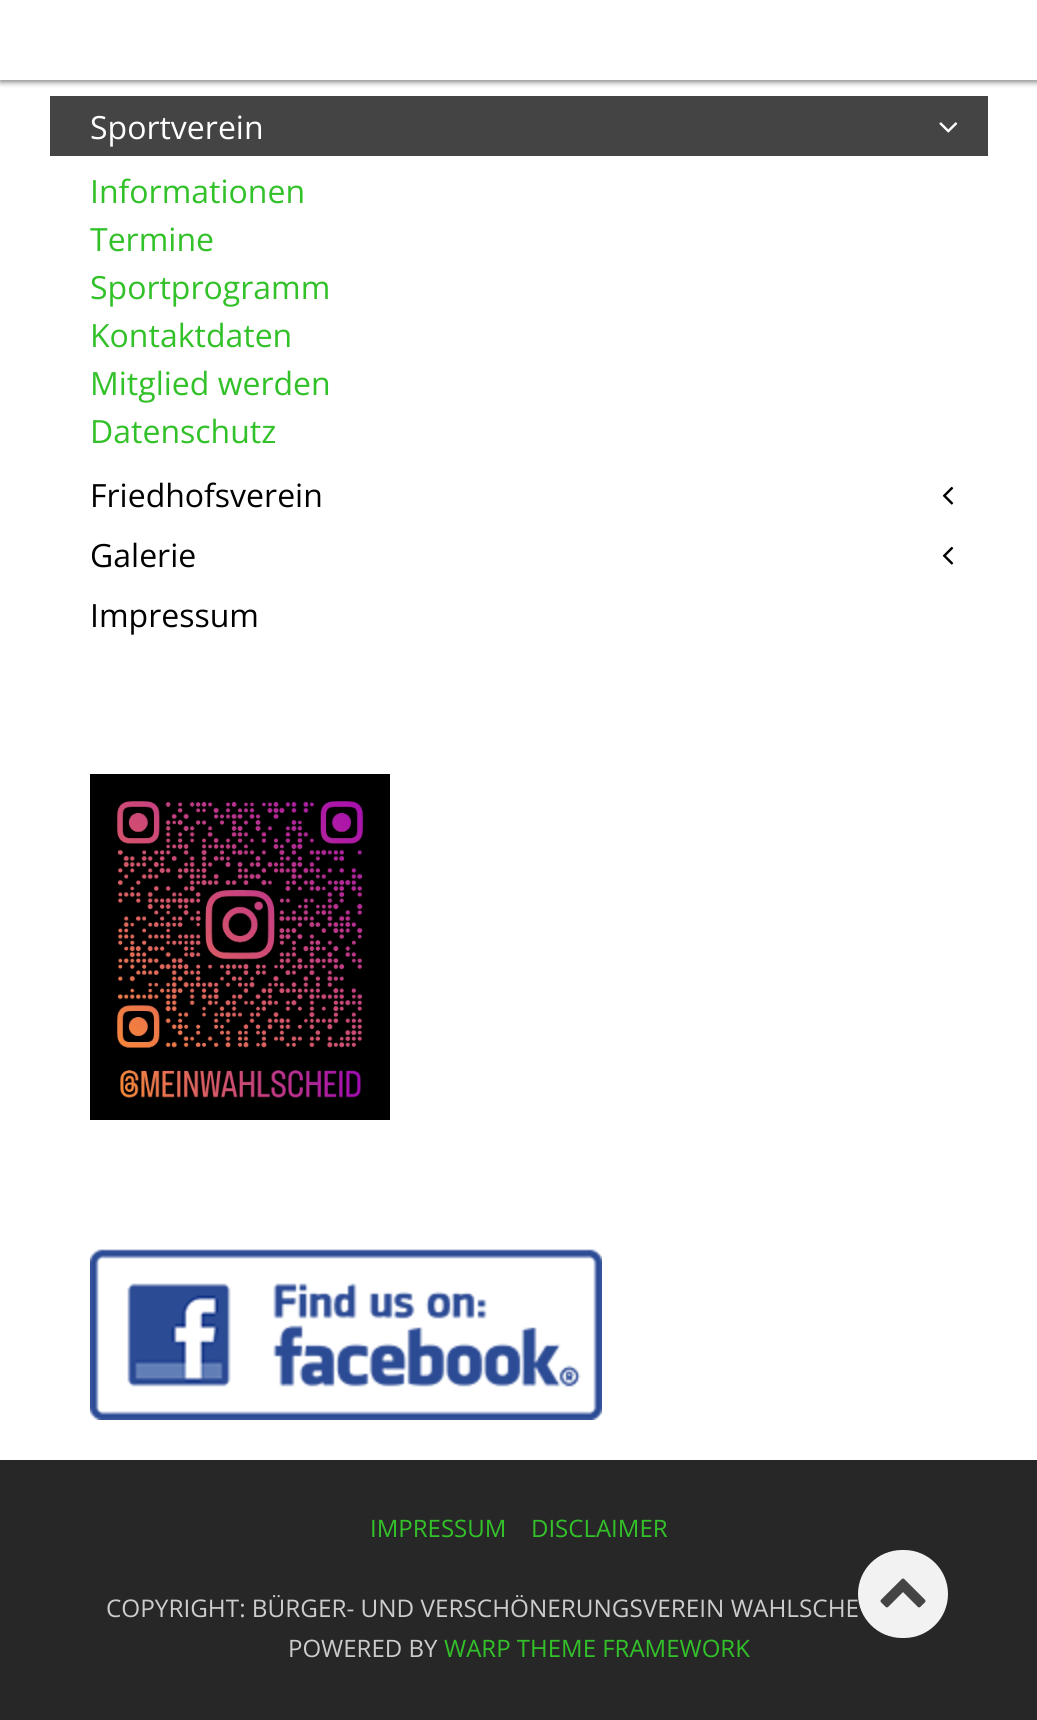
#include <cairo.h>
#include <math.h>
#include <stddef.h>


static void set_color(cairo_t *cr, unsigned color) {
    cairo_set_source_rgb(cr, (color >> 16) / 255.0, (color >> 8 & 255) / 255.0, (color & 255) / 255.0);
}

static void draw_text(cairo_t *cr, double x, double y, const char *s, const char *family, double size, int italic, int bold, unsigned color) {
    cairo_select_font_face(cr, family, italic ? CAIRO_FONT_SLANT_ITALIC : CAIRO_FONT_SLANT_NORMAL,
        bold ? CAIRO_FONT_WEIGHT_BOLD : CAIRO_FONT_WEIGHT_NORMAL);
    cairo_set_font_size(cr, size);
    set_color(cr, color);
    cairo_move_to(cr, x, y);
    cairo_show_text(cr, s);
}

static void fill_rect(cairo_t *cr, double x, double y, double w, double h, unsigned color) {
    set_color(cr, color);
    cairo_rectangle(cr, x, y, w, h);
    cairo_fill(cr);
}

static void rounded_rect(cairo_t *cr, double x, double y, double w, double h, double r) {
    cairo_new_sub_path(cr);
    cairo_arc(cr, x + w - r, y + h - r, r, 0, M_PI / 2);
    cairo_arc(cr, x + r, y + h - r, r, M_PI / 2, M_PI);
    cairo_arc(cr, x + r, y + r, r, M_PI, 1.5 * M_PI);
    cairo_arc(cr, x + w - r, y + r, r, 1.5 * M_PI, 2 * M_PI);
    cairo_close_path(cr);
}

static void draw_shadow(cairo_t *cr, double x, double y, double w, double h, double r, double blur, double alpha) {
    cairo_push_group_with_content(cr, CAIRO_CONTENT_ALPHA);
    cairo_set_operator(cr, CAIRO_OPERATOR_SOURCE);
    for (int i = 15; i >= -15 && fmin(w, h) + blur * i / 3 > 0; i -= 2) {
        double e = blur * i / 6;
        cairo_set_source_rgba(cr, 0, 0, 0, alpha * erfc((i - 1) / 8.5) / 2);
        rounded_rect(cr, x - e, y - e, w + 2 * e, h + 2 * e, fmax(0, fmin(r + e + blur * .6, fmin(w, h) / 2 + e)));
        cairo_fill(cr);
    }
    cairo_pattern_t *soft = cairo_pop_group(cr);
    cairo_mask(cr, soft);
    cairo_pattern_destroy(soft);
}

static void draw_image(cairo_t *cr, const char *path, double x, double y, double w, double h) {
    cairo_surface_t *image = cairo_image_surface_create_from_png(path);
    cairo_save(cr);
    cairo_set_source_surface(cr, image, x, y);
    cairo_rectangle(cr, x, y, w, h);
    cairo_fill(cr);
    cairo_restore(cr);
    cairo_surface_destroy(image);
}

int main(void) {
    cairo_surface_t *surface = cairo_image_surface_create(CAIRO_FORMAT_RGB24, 1037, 1720);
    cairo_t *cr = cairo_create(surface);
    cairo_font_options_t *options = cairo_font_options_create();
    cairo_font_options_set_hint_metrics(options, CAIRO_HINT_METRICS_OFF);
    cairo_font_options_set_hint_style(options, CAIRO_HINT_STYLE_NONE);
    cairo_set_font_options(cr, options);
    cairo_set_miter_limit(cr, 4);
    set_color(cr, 0xFFFFFF);
    cairo_paint(cr);
    set_color(cr, 0x000000);
    draw_shadow(cr, 0, 2, 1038, 80, 0, 3, 0.5);
    fill_rect(cr, 0, 0, 1037, 80, 0xFFFFFF);
    fill_rect(cr, 50, 96, 938, 60, 0x444444);
    draw_text(cr, 90, 139, "Sportverein", "Open Sans", 32, 0, 0, 0xFFFFFF);
    draw_image(cr, "assets/img1.png", 939, 122, 19, 11);
    draw_text(cr, 90, 203, "Informationen", "Open Sans", 32, 0, 0, 0x33C12A);
    draw_text(cr, 90, 251, "Termine", "Open Sans", 32, 0, 0, 0x33C12A);
    draw_text(cr, 90, 299, "Sportprogramm", "Open Sans", 32, 0, 0, 0x33C12A);
    draw_text(cr, 90, 347, "Kontaktdaten", "Open Sans", 32, 0, 0, 0x33C12A);
    draw_text(cr, 90, 395, "Mitglied werden", "Open Sans", 32, 0, 0, 0x33C12A);
    draw_text(cr, 90, 443, "Datenschutz", "Open Sans", 32, 0, 0, 0x33C12A);
    draw_text(cr, 90, 507, "Friedhofsverein", "Open Sans", 32, 0, 0, 0x000000);
    draw_image(cr, "assets/img2.png", 942, 486, 12, 19);
    draw_text(cr, 90, 567, "Galerie", "Open Sans", 32, 0, 0, 0x000000);
    draw_image(cr, "assets/img2.png", 942, 546, 12, 19);
    draw_text(cr, 90, 627, "Impressum", "Open Sans", 32, 0, 0, 0x000000);
    draw_image(cr, "assets/img3.png", 90, 774, 300, 346);
    draw_image(cr, "assets/img4.png", 90, 1249, 512, 171);
    fill_rect(cr, 0, 1460, 1037, 260, 0x272727);
    draw_text(cr, 370, 1537, "IMPRESSUM", "Open Sans", 24, 0, 0, 0x33C12A);
    draw_text(cr, 531, 1537, "DISCLAIMER", "Open Sans", 24, 0, 0, 0x33C12A);
    draw_text(cr, 106, 1617, "COPYRIGHT: BÜRGER- UND VERSCHÖNERUNGSVEREIN WAHLSCHE", "Open Sans", 24.3, 0, 0, 0xCCCCCC);
    set_color(cr, 0xF2F2F2);
    rounded_rect(cr, 858, 1550, 90, 88, 44);
    cairo_fill(cr);
    draw_image(cr, "assets/img5.png", 880, 1578, 46, 30);
    draw_text(cr, 288, 1657, "POWERED BY", "Open Sans", 24, 0, 0, 0xCCCCCC);
    draw_text(cr, 444, 1657, "WARP THEME FRAMEWORK", "Open Sans", 24, 0, 0, 0x33C12A);
    cairo_surface_write_to_png(surface, "output.png");
    cairo_font_options_destroy(options);
    cairo_destroy(cr);
    cairo_surface_destroy(surface);
    return 0;
}
